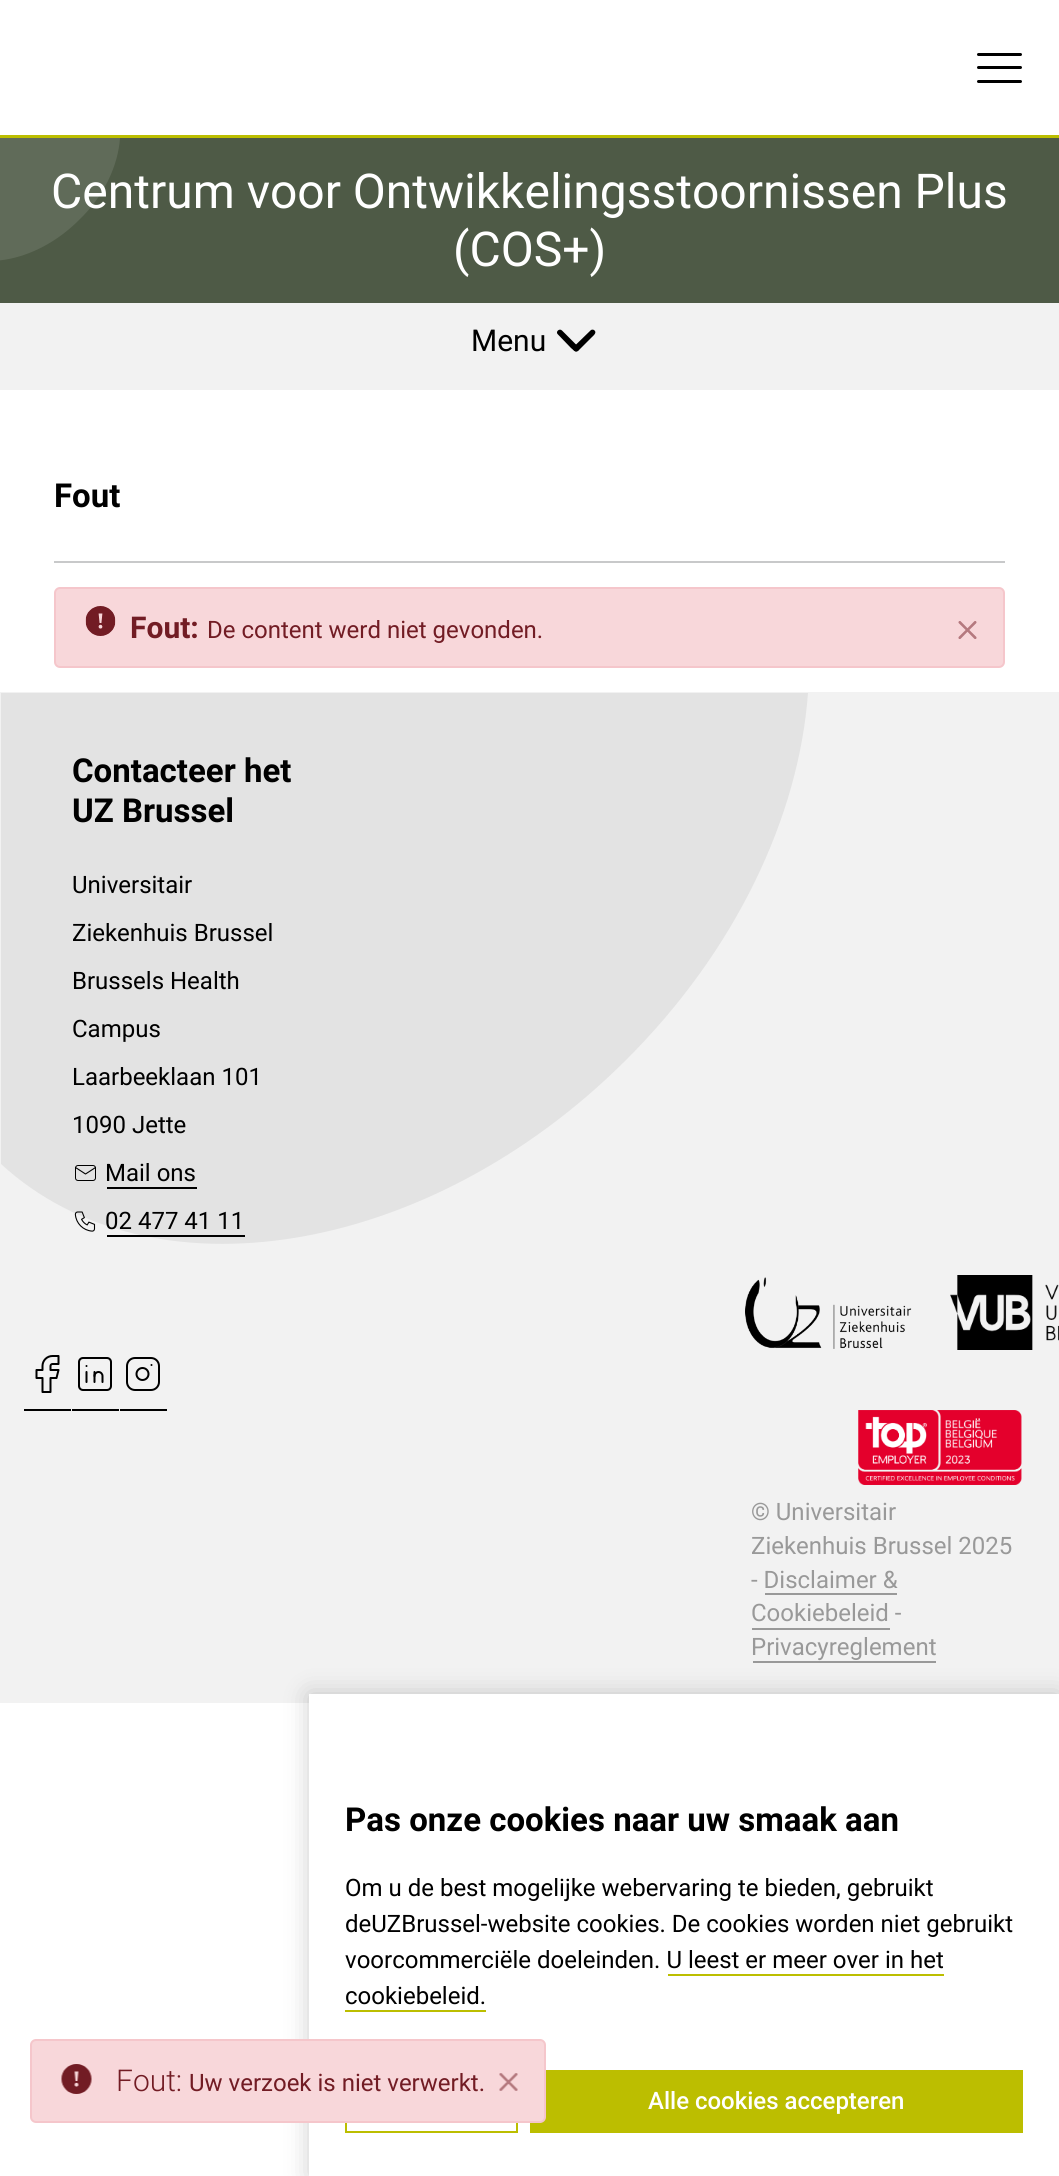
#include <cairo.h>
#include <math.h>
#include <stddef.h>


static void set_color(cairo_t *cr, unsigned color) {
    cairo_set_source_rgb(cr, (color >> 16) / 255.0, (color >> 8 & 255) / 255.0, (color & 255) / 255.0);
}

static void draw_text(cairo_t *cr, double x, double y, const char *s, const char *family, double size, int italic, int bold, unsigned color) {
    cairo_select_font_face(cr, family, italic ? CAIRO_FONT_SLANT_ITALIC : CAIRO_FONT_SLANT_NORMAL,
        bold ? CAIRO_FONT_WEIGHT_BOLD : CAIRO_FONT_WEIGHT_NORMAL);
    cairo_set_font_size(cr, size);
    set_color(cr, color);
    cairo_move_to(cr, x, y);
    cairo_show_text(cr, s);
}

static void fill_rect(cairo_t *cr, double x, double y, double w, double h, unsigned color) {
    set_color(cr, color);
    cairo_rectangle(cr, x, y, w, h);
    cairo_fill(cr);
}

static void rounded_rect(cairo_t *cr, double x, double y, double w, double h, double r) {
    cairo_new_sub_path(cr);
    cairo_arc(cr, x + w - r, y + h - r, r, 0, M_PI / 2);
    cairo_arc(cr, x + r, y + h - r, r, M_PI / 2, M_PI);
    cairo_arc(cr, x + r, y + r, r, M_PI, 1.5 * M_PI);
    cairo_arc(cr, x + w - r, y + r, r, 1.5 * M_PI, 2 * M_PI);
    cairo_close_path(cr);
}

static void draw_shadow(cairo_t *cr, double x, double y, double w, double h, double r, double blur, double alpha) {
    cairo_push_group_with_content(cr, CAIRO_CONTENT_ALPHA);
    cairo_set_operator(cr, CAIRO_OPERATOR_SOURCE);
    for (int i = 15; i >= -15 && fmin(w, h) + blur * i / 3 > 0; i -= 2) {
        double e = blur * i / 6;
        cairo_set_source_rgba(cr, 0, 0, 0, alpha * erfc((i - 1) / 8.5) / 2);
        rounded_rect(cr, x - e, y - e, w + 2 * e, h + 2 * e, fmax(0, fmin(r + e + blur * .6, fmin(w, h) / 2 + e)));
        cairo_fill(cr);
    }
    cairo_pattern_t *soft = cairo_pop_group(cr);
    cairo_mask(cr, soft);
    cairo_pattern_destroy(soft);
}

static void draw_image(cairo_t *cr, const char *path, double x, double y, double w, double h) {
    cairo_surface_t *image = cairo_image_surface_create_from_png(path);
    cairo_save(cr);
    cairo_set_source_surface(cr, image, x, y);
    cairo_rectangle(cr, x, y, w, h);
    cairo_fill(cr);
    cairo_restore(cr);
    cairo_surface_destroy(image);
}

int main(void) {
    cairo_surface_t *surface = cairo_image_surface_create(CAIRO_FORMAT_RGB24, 1059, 2176);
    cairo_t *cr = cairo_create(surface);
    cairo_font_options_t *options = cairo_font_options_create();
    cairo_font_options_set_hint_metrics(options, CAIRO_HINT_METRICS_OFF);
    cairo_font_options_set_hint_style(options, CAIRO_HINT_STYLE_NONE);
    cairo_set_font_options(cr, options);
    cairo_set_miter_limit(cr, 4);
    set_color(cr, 0xFFFFFF);
    cairo_paint(cr);
    fill_rect(cr, 0, 135, 1059, 3, 0xBCBE00);
    set_color(cr, 0x000000);
    rounded_rect(cr, 977, 53, 45, 3, 1.5);
    cairo_fill(cr);
    rounded_rect(cr, 977, 66, 45, 3, 1.5);
    cairo_fill(cr);
    rounded_rect(cr, 977, 80, 45, 3, 1.5);
    cairo_fill(cr);
    fill_rect(cr, 0, 138, 1059, 165, 0x4E5A46);
    set_color(cr, 0x606B59);
    cairo_new_path(cr);
    cairo_move_to(cr, -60, 243);
    cairo_curve_to(cr, -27, 274, 35, 264, 79, 220);
    cairo_curve_to(cr, 104, 196, 118, 166, 120, 138);
    cairo_line_to(cr, -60, 138);
    cairo_close_path(cr);
    cairo_fill(cr);
    draw_text(cr, 51, 208, "Centrum voor Ontwikkelingsstoornissen Plus", "Roboto", 48, 0, 0, 0xFFFFFF);
    draw_text(cr, 453, 266, "(COS+)", "Roboto", 48, 0, 0, 0xFFFFFF);
    fill_rect(cr, 0, 303, 1059, 87, 0xF2F2F2);
    draw_text(cr, 471, 351, "Menu", "Roboto", 30, 0, 0, 0x000000);
    cairo_new_path(cr);
    cairo_move_to(cr, 562, 330.5);
    cairo_line_to(cr, 575, 343.5);
    cairo_curve_to(cr, 577, 345.5, 581, 348.5, 577.5, 351);
    cairo_curve_to(cr, 576.5, 351.5, 575.5, 351.5, 574.5, 351);
    cairo_line_to(cr, 571, 348);
    cairo_line_to(cr, 557.5, 334);
    cairo_curve_to(cr, 555.5, 331.5, 559.5, 328, 562, 330.5);
    cairo_close_path(cr);
    cairo_fill(cr);
    cairo_new_path(cr);
    cairo_move_to(cr, 574, 346.5);
    cairo_line_to(cr, 591, 330);
    cairo_curve_to(cr, 592, 329.5, 593, 329.5, 594, 330);
    cairo_curve_to(cr, 597.5, 332.5, 593.5, 335.5, 591.5, 337.5);
    cairo_line_to(cr, 578, 351);
    cairo_curve_to(cr, 575, 353, 571.5, 349, 574, 346.5);
    cairo_close_path(cr);
    cairo_fill(cr);
    fill_rect(cr, 54, 561, 951, 2, 0xC8C9CA);
    draw_text(cr, 54, 507, "Fout", "Roboto", 33, 0, 1, 0x000000);
    set_color(cr, 0xF8D7DA);
    rounded_rect(cr, 55, 588, 949, 79, 5);
    cairo_fill_preserve(cr);
    set_color(cr, 0xF5C6CB);
    cairo_stroke(cr);
    draw_image(cr, "assets/img1.png", 85, 606, 31, 30);
    draw_text(cr, 130, 638, "Fout:", "Roboto", 30, 0, 1, 0x721C24);
    draw_text(cr, 207, 638, "De content werd niet gevonden.", "Roboto", 24, 0, 0, 0x721C24);
    draw_image(cr, "assets/img2.png", 958, 621, 19, 18);
    fill_rect(cr, 0, 692, 1059, 1011, 0xF2F2F2);
    set_color(cr, 0xE3E3E3);
    cairo_new_path(cr);
    cairo_move_to(cr, 1, 1164);
    cairo_curve_to(cr, 151, 1302, 428, 1257, 625, 1061);
    cairo_curve_to(cr, 736, 951, 799, 816, 808, 693);
    cairo_line_to(cr, 1, 693);
    cairo_close_path(cr);
    cairo_fill(cr);
    draw_text(cr, 72, 782, "Contacteer het", "Roboto", 33, 0, 1, 0x000000);
    draw_text(cr, 72, 822, "UZ Brussel", "Roboto", 33, 0, 1, 0x000000);
    draw_text(cr, 72, 893, "Universitair", "Roboto", 24, 0, 0, 0x000000);
    draw_text(cr, 72, 941, "Ziekenhuis Brussel", "Roboto", 24, 0, 0, 0x000000);
    draw_text(cr, 72, 989, "Brussels Health", "Roboto", 24, 0, 0, 0x000000);
    draw_text(cr, 72, 1037, "Campus", "Roboto", 24, 0, 0, 0x000000);
    draw_text(cr, 72, 1085, "Laarbeeklaan 101", "Roboto", 24, 0, 0, 0x000000);
    draw_text(cr, 72, 1133, "1090 Jette", "Roboto", 24, 0, 0, 0x000000);
    rounded_rect(cr, 75.5, 1165.5, 20, 15, 2.5);
    cairo_set_line_width(cr, 1);
    cairo_stroke(cr);
    cairo_new_path(cr);
    cairo_move_to(cr, 75.5, 1167.5);
    cairo_line_to(cr, 85.5, 1174);
    cairo_line_to(cr, 95.5, 1167.5);
    cairo_set_line_width(cr, 1.1);
    cairo_set_line_cap(cr, CAIRO_LINE_CAP_ROUND);
    cairo_set_line_join(cr, CAIRO_LINE_JOIN_ROUND);
    cairo_stroke(cr);
    draw_text(cr, 105, 1181, "Mail ons", "Roboto", 24, 0, 0, 0x000000);
    fill_rect(cr, 107, 1187, 90, 2, 0x000000);
    draw_image(cr, "assets/img3.png", 74, 1211, 22, 21);
    draw_text(cr, 105, 1229, "02 477 41 11", "Roboto", 24, 0, 0, 0x000000);
    fill_rect(cr, 107, 1235, 138, 2, 0x000000);
    draw_image(cr, "assets/img4.png", 745, 1277, 167, 72);
    draw_image(cr, "assets/img5.png", 950, 1275, 109, 75);
    fill_rect(cr, 24, 1409, 47, 2, 0x000000);
    draw_image(cr, "assets/img6.png", 35, 1355, 25, 38);
    fill_rect(cr, 72, 1409, 47, 2, 0x000000);
    draw_image(cr, "assets/img7.png", 78, 1357, 34, 34);
    fill_rect(cr, 120, 1409, 47, 2, 0x000000);
    rounded_rect(cr, 127, 1358, 32, 32, 8);
    cairo_set_line_width(cr, 2);
    cairo_set_line_cap(cr, CAIRO_LINE_CAP_BUTT);
    cairo_set_line_join(cr, CAIRO_LINE_JOIN_MITER);
    cairo_stroke(cr);
    cairo_new_path(cr);
    cairo_move_to(cr, 151.5, 1365);
    cairo_line_to(cr, 151.5, 1365);
    cairo_set_line_cap(cr, CAIRO_LINE_CAP_ROUND);
    cairo_set_line_join(cr, CAIRO_LINE_JOIN_ROUND);
    cairo_stroke(cr);
    cairo_arc(cr, 142.5, 1374, 6, 0, 2 * M_PI);
    cairo_set_line_cap(cr, CAIRO_LINE_CAP_BUTT);
    cairo_set_line_join(cr, CAIRO_LINE_JOIN_MITER);
    cairo_stroke(cr);
    draw_image(cr, "assets/img8.png", 858, 1410, 164, 75);
    draw_text(cr, 751, 1520, "© Universitair", "Roboto", 24, 0, 0, 0x999999);
    draw_text(cr, 751, 1554, "Ziekenhuis Brussel 2025", "Roboto", 24, 0, 0, 0x999999);
    draw_text(cr, 751, 1588, "- Disclaimer &", "Roboto", 24, 0, 0, 0x999999);
    draw_text(cr, 751, 1621, "Cookiebeleid -", "Roboto", 24, 0, 0, 0x999999);
    fill_rect(cr, 765, 1593, 132, 2, 0x999999);
    fill_rect(cr, 752, 1628, 138, 2, 0x999999);
    draw_text(cr, 751, 1655, "Privacyreglement", "Roboto", 24, 0, 0, 0x999999);
    fill_rect(cr, 753, 1661, 183, 2, 0x999999);
    set_color(cr, 0x000000);
    draw_shadow(cr, 309, 1694, 750, 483, 0, 12, 0.2);
    fill_rect(cr, 309, 1694, 750, 482, 0xFFFFFF);
    draw_text(cr, 345, 1831, "Pas onze cookies naar uw smaak aan", "Roboto", 33, 0, 1, 0x000000);
    draw_text(cr, 345, 1896, "Om u de best mogelijke webervaring te bieden, gebruikt", "Roboto", 24, 0, 0, 0x000000);
    draw_text(cr, 345, 1932, "deUZBrussel-website cookies. De cookies worden niet gebruikt", "Roboto", 24, 0, 0, 0x000000);
    draw_text(cr, 345, 1968, "voorcommerciële doeleinden. U leest er meer over in het", "Roboto", 24, 0, 0, 0x000000);
    draw_text(cr, 345, 2004, "cookiebeleid.", "Roboto", 24, 0, 0, 0x000000);
    fill_rect(cr, 668, 1974, 276, 2, 0xBCBE00);
    fill_rect(cr, 345, 2010, 141, 2, 0xBCBE00);
    cairo_rectangle(cr, 346, 2071, 171, 61);
    cairo_stroke(cr);
    fill_rect(cr, 530, 2070, 493, 63, 0xBCBE00);
    draw_text(cr, 648, 2109, "Alle cookies accepteren", "Roboto Medium", 24, 0, 0, 0xFFFFFF);
    set_color(cr, 0xF8D7DA);
    rounded_rect(cr, 31, 2040, 514, 82, 5);
    cairo_fill_preserve(cr);
    set_color(cr, 0xF5C6CB);
    cairo_stroke(cr);
    draw_image(cr, "assets/img9.png", 61, 2064, 31, 30);
    draw_text(cr, 116, 2091, "Fout:", "Roboto Light", 30, 0, 0, 0x721C24);
    draw_text(cr, 189, 2091, "Uw verzoek is niet verwerkt.", "Roboto", 24, 0, 0, 0x721C24);
    draw_image(cr, "assets/img10.png", 499, 2073, 19, 18);
    cairo_surface_write_to_png(surface, "output.png");
    cairo_font_options_destroy(options);
    cairo_destroy(cr);
    cairo_surface_destroy(surface);
    return 0;
}
